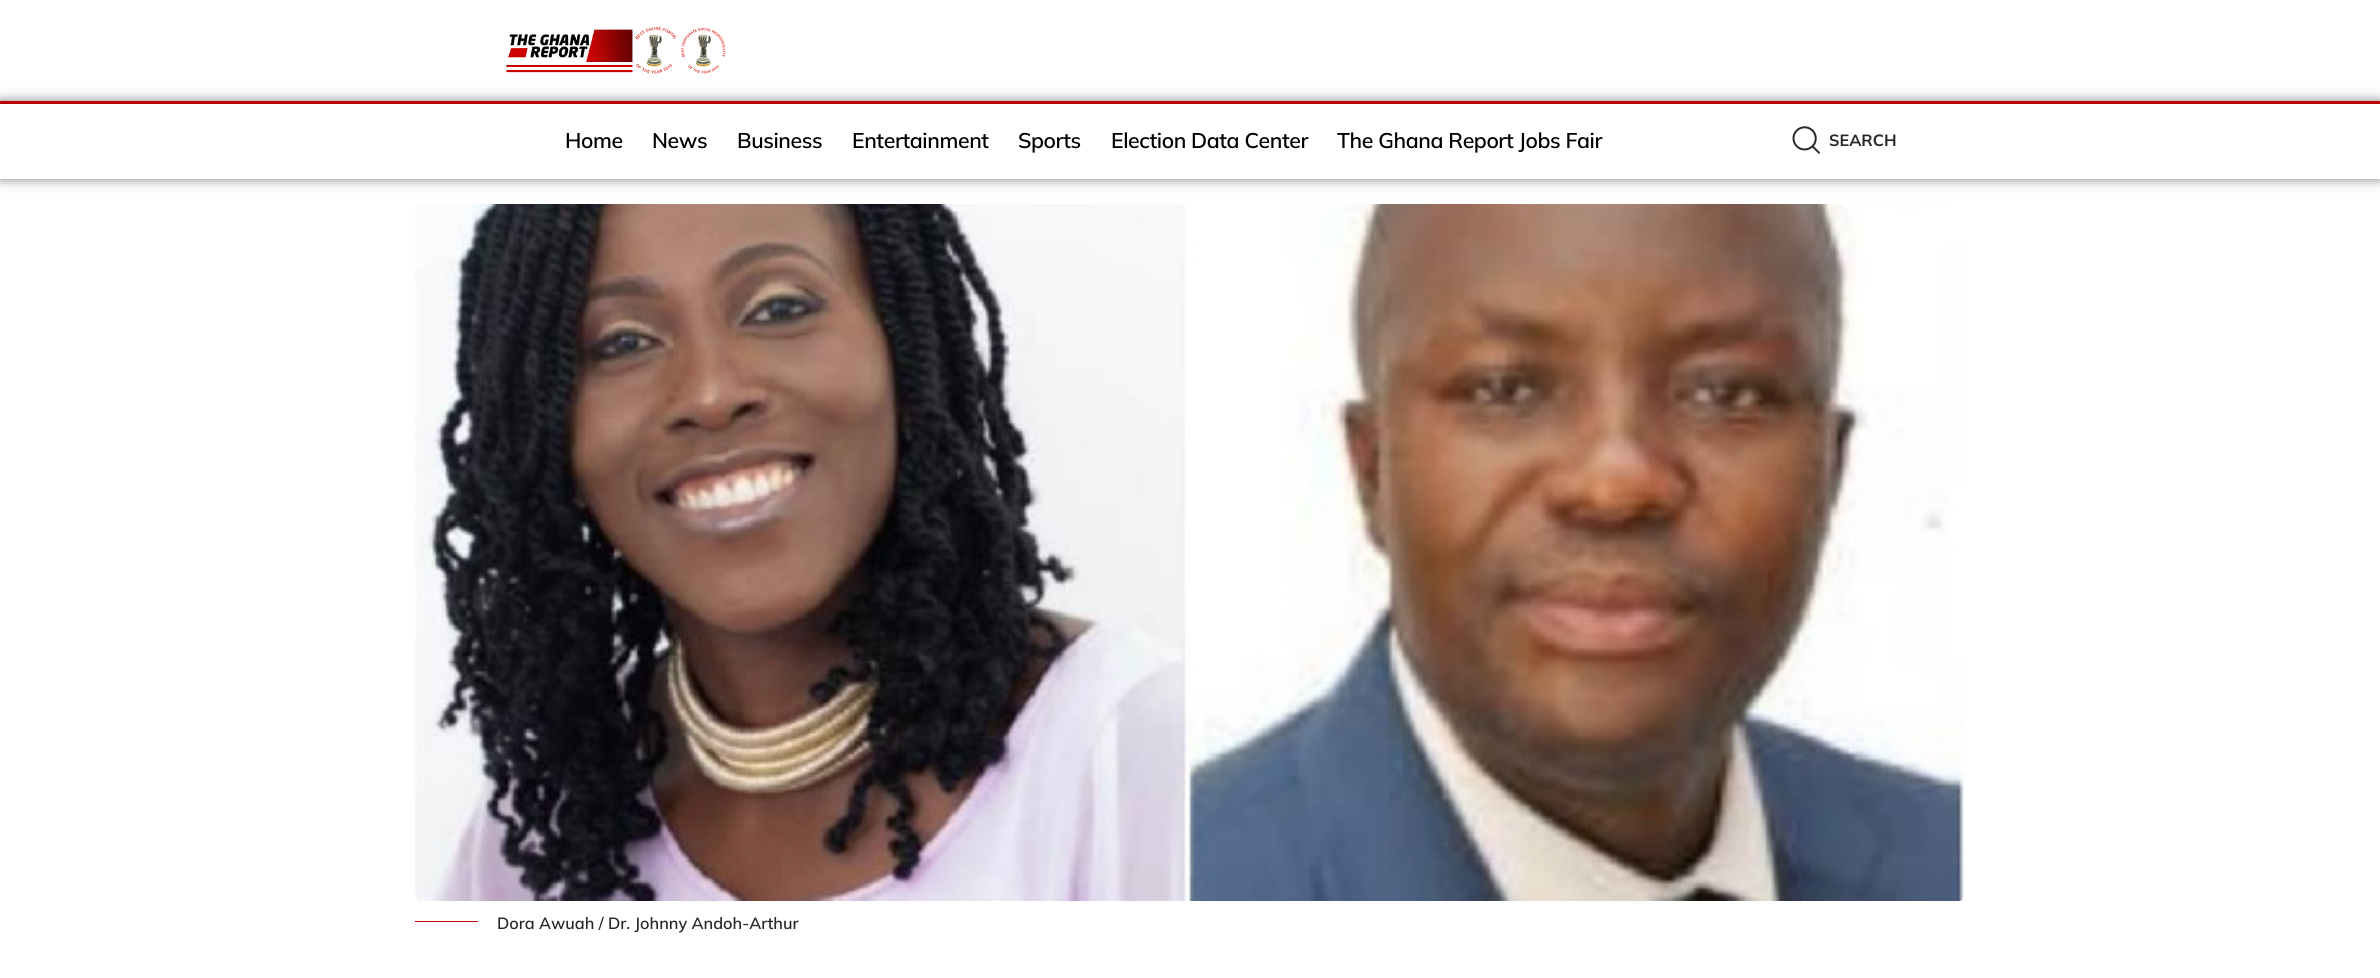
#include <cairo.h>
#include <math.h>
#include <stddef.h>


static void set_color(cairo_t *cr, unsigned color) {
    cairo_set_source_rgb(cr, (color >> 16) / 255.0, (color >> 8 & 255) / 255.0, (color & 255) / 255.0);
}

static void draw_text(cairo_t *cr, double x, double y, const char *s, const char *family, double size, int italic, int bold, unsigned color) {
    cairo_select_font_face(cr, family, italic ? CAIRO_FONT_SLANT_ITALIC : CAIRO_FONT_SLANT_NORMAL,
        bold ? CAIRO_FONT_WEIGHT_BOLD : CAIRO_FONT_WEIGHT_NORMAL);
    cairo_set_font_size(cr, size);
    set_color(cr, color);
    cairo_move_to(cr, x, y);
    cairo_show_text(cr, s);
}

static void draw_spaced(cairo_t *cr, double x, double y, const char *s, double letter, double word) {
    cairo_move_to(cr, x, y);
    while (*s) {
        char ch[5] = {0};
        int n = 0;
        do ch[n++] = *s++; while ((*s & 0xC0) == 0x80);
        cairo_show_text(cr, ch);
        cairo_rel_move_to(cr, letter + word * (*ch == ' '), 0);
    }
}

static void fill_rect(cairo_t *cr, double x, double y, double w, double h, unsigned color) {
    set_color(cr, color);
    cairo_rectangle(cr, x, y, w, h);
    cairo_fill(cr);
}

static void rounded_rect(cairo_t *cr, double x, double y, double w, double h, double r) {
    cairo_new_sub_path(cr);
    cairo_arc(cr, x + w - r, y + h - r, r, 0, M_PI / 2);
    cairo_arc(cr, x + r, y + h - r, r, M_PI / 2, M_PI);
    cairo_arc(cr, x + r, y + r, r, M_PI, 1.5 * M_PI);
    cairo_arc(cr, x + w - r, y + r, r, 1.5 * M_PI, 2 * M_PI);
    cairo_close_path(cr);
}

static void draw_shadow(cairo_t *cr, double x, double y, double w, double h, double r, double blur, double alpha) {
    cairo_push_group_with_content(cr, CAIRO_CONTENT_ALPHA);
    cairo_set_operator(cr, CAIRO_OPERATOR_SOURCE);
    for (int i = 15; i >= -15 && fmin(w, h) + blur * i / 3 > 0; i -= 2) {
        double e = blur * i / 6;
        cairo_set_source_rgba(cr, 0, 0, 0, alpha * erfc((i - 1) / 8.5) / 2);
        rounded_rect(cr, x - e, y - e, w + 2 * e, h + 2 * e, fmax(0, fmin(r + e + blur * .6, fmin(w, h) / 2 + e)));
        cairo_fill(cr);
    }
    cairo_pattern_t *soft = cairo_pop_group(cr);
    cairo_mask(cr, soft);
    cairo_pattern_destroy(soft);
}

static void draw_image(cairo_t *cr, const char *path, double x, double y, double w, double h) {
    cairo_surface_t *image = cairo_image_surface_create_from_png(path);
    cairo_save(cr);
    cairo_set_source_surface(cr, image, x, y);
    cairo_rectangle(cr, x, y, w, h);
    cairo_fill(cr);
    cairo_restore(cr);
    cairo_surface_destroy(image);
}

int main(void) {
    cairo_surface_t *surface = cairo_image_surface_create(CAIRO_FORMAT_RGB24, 2380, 978);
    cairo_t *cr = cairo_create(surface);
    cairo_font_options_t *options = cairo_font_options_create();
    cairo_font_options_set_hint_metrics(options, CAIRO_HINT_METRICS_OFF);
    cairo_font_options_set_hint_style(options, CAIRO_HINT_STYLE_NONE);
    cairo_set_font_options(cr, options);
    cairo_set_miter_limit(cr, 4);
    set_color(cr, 0xFFFFFF);
    cairo_paint(cr);
    draw_image(cr, "assets/img1.png", 506, 26, 220, 48);
    set_color(cr, 0x000000);
    draw_shadow(cr, 0, 101, 2380, 78, 0, 6, 0.5);
    fill_rect(cr, 0, 104, 2380, 75, 0xFFFFFF);
    fill_rect(cr, 0, 101, 2380, 3, 0xB70405);
    cairo_select_font_face(cr, "Mulish SemiBold", CAIRO_FONT_SLANT_NORMAL, CAIRO_FONT_WEIGHT_NORMAL);
    cairo_set_font_size(cr, 21.25);
    set_color(cr, 0x000000);
    draw_spaced(cr, 565, 148, "Home", -0.4, 0);
    draw_spaced(cr, 652, 148, "News", -0.4, 0);
    draw_spaced(cr, 737, 148, "Business", -0.4, 0);
    draw_spaced(cr, 852, 148, "Entertainment", -0.4, 0);
    draw_spaced(cr, 1018, 148, "Sports", -0.4, 0);
    draw_spaced(cr, 1111, 148, "Election Data Center", -0.4, 0);
    draw_spaced(cr, 1337, 148, "The Ghana Report Jobs Fair", -0.4, 0);
    draw_image(cr, "assets/img2.png", 1792, 126, 28, 28);
    draw_text(cr, 1829, 146, "SEARCH", "Mulish", 16.25, 0, 1, 0x282828);
    draw_image(cr, "assets/img3.png", 415, 204, 1550, 697);
    fill_rect(cr, 415, 921, 63, 1, 0xB70405);
    draw_text(cr, 497, 929, "Dora Awuah / Dr. Johnny Andoh-Arthur", "Mulish SemiBold", 16.25, 0, 0, 0x282828);
    cairo_surface_write_to_png(surface, "output.png");
    cairo_font_options_destroy(options);
    cairo_destroy(cr);
    cairo_surface_destroy(surface);
    return 0;
}
